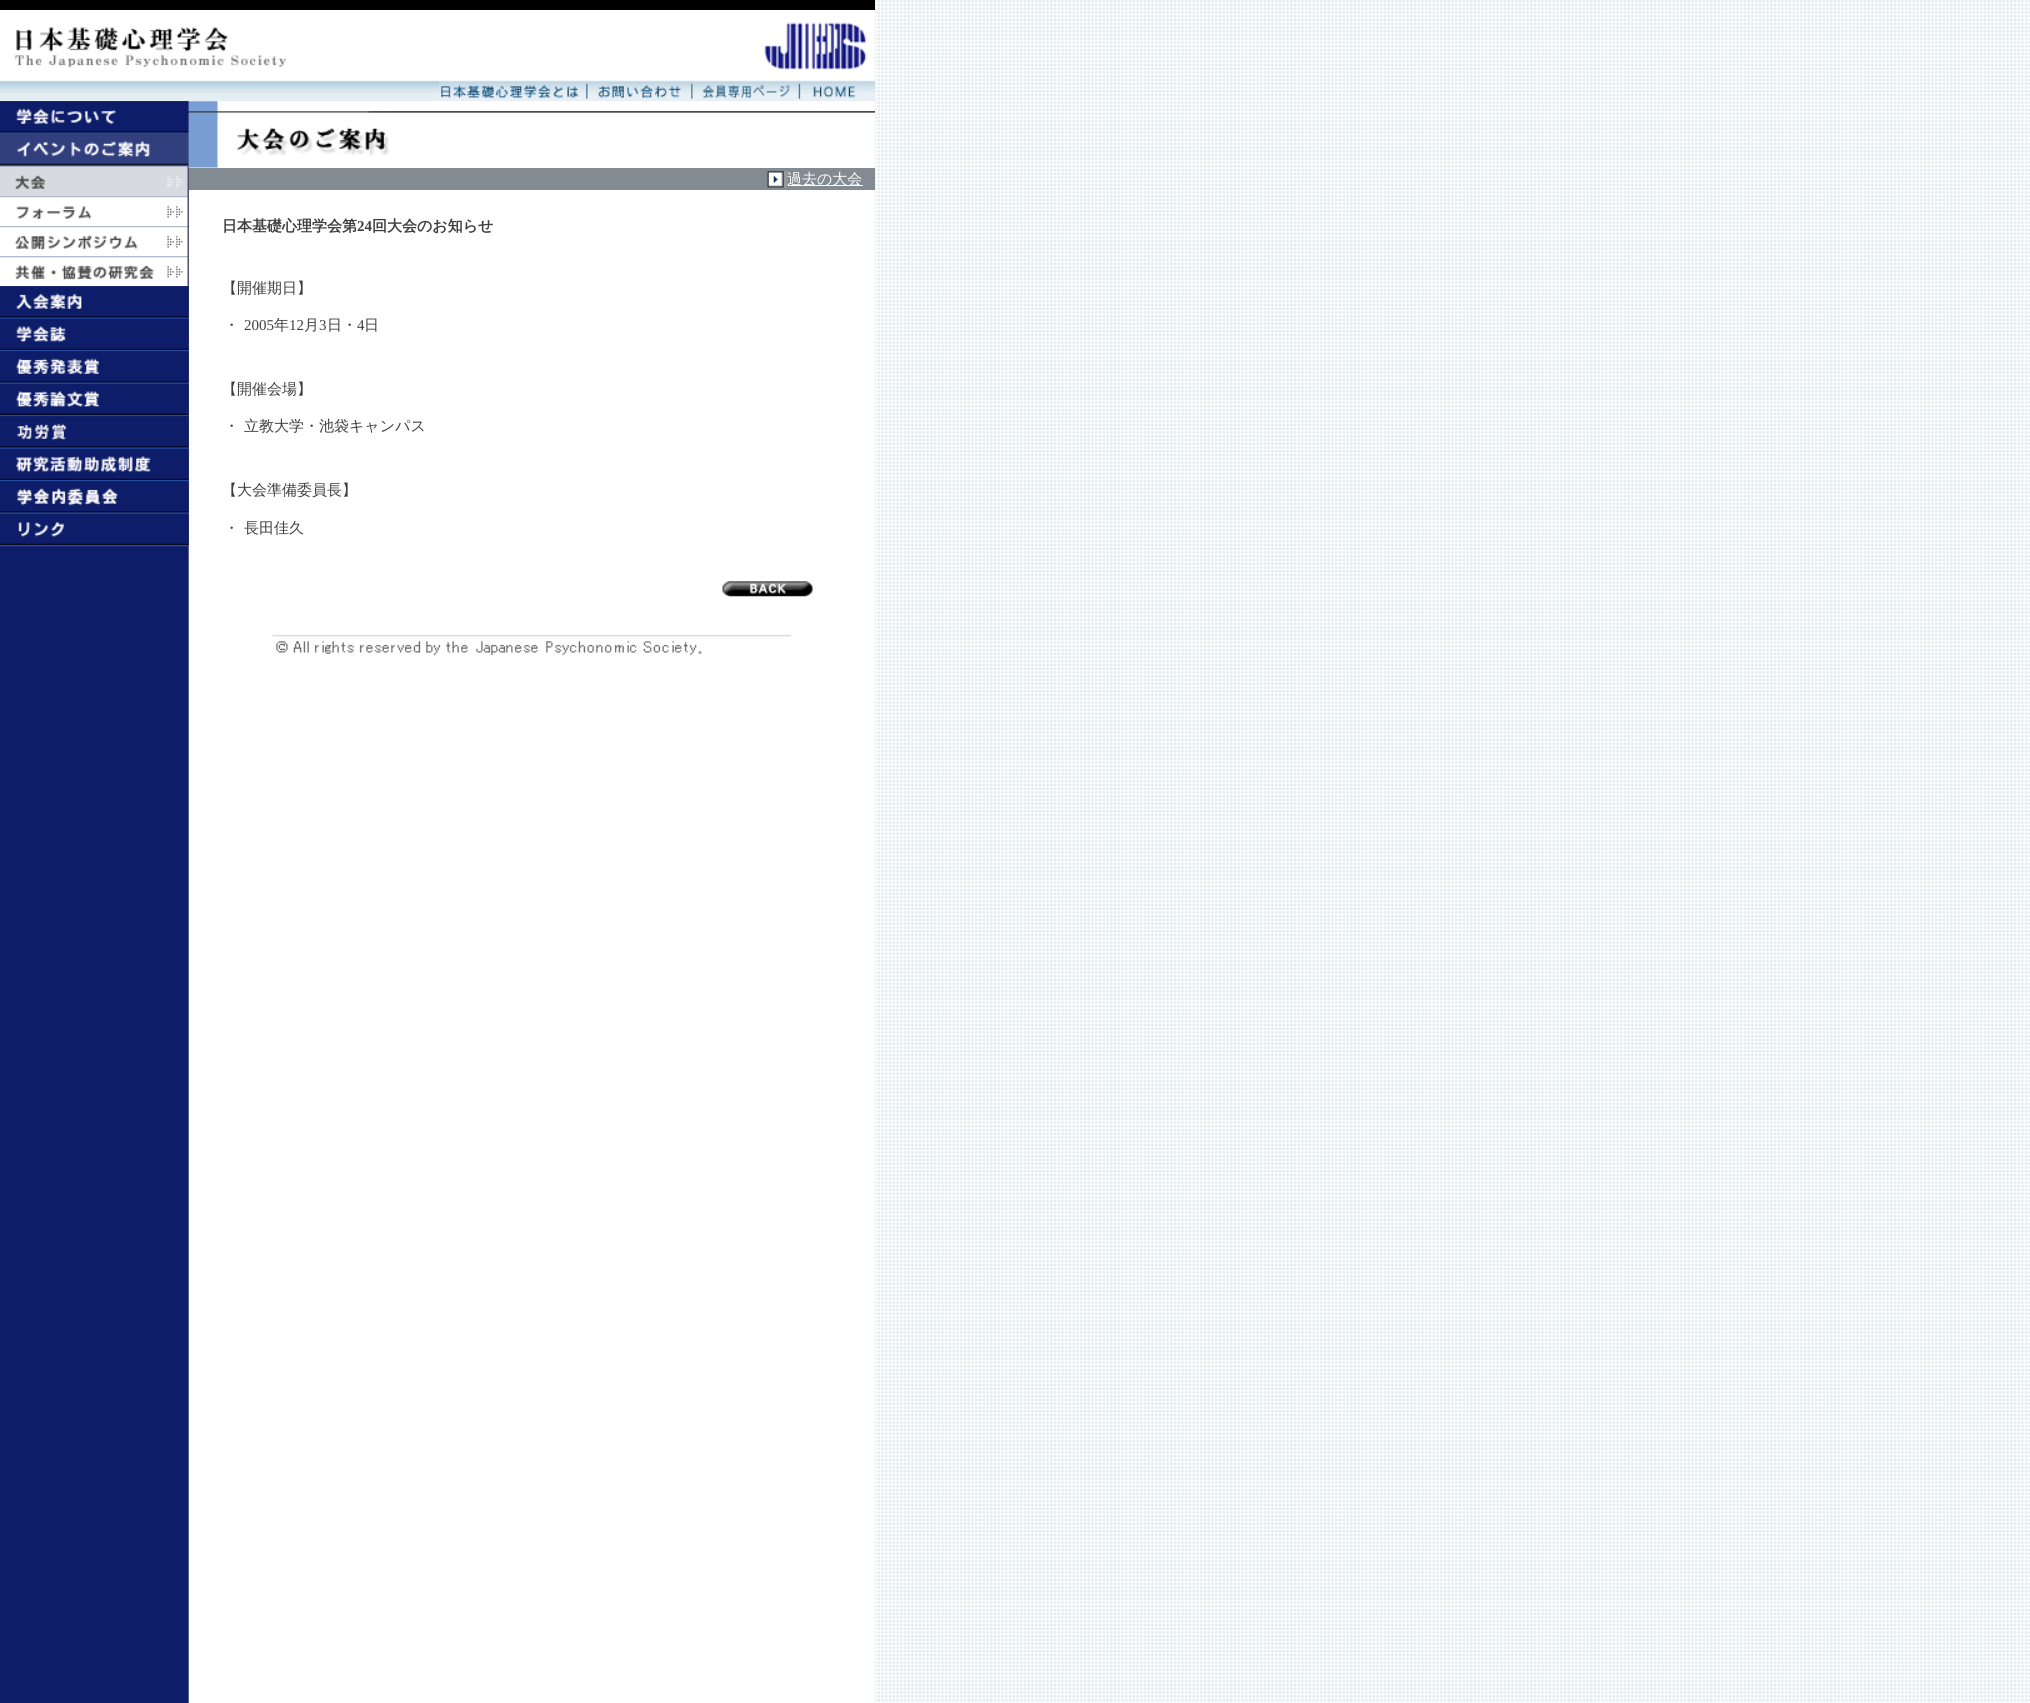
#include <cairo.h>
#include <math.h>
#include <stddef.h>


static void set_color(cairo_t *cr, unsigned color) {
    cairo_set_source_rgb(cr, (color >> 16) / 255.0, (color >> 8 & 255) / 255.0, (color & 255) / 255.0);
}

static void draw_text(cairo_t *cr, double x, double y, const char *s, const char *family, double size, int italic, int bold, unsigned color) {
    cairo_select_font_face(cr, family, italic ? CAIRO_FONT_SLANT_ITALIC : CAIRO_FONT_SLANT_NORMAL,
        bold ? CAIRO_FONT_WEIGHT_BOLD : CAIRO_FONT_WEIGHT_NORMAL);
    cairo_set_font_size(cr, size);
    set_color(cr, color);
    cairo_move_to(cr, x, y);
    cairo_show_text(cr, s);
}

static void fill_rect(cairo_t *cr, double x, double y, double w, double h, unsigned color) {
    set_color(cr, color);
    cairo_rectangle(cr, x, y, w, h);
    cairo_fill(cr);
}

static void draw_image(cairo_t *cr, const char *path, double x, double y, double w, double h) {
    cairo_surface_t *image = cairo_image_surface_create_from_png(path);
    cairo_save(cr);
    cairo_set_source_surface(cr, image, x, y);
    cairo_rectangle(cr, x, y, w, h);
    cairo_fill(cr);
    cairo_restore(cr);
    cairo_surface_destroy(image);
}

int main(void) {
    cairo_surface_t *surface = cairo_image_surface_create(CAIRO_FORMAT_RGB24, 2030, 1703);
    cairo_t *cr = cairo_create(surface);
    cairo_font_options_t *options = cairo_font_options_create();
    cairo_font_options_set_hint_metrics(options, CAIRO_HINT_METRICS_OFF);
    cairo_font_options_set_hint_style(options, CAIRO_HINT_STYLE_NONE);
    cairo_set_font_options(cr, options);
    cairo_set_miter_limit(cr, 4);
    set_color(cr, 0xFFFFFF);
    cairo_paint(cr);
    draw_image(cr, "assets/img1.png", 0, 0, 2030, 1703);
    fill_rect(cr, 0, 10, 875, 70, 0xFFFFFF);
    fill_rect(cr, 0, 0, 875, 10, 0x000000);
    draw_image(cr, "assets/img2.png", 764, 22, 103, 48);
    draw_image(cr, "assets/img3.png", 14, 27, 273, 41);
    draw_image(cr, "assets/img4.png", 0, 80, 875, 22);
    fill_rect(cr, 189, 101, 686, 534, 0xFFFFFF);
    draw_image(cr, "assets/img23.png", 188, 101, 687, 67);
    draw_image(cr, "assets/img5.png", 439, 81, 148, 21);
    draw_image(cr, "assets/img6.png", 586, 81, 106, 21);
    draw_image(cr, "assets/img7.png", 691, 81, 108, 21);
    draw_image(cr, "assets/img8.png", 798, 81, 77, 21);
    draw_image(cr, "assets/img9.png", 0, 101, 189, 33);
    draw_image(cr, "assets/img10.png", 0, 133, 189, 34);
    draw_image(cr, "assets/img11.png", 0, 166, 189, 31);
    draw_image(cr, "assets/img12.png", 0, 196, 189, 31);
    draw_image(cr, "assets/img13.png", 0, 226, 189, 31);
    draw_image(cr, "assets/img14.png", 0, 256, 189, 31);
    draw_image(cr, "assets/img15.png", 0, 286, 189, 33);
    draw_image(cr, "assets/img16.png", 0, 318, 189, 34);
    draw_image(cr, "assets/img17.png", 0, 351, 189, 33);
    draw_image(cr, "assets/img18.png", 0, 383, 189, 34);
    draw_image(cr, "assets/img19.png", 0, 416, 189, 33);
    draw_image(cr, "assets/img20.png", 0, 448, 189, 34);
    draw_image(cr, "assets/img21.png", 0, 481, 189, 33);
    draw_image(cr, "assets/img22.png", 0, 513, 189, 34);
    draw_image(cr, "assets/img24.png", 188, 101, 201, 67);
    fill_rect(cr, 189, 168, 686, 22, 0x828A92);
    draw_image(cr, "assets/img25.png", 767, 171, 21, 17);
    fill_rect(cr, 788, 185, 75, 1, 0xFFFFFF);
    draw_text(cr, 787, 184, "過去の大会", "WenQuanYi Zen Hei Medium", 15, 0, 0, 0xFFFFFF);
    draw_text(cr, 222, 231, "日本基礎心理学会第", "WenQuanYi Zen Hei", 15, 0, 1, 0x3E3E3E);
    draw_text(cr, 357, 231, "24", "Liberation Serif", 15, 0, 1, 0x3E3E3E);
    draw_text(cr, 372, 231, "回大会のお知らせ", "WenQuanYi Zen Hei", 15, 0, 1, 0x3E3E3E);
    draw_text(cr, 222, 293, "【開催期日】", "WenQuanYi Zen Hei Medium", 15, 0, 0, 0x3E3E3E);
    draw_text(cr, 224, 330, "・", "WenQuanYi Zen Hei Medium", 15, 0, 0, 0x3E3E3E);
    draw_text(cr, 244, 330, "2005", "Liberation Serif", 15, 0, 0, 0x3E3E3E);
    draw_text(cr, 274, 330, "年", "WenQuanYi Zen Hei Medium", 15, 0, 0, 0x3E3E3E);
    draw_text(cr, 289, 330, "12", "Liberation Serif", 15, 0, 0, 0x3E3E3E);
    draw_text(cr, 304, 330, "月", "WenQuanYi Zen Hei Medium", 15, 0, 0, 0x3E3E3E);
    draw_text(cr, 319, 330, "3", "Liberation Serif", 15, 0, 0, 0x3E3E3E);
    draw_text(cr, 327, 330, "日・", "WenQuanYi Zen Hei Medium", 15, 0, 0, 0x3E3E3E);
    draw_text(cr, 357, 330, "4", "Liberation Serif", 15, 0, 0, 0x3E3E3E);
    draw_text(cr, 364, 330, "日", "WenQuanYi Zen Hei Medium", 15, 0, 0, 0x3E3E3E);
    draw_text(cr, 222, 394, "【開催会場】", "WenQuanYi Zen Hei Medium", 15, 0, 0, 0x3E3E3E);
    draw_text(cr, 224, 431, "・", "WenQuanYi Zen Hei Medium", 15, 0, 0, 0x3E3E3E);
    draw_text(cr, 244, 431, "立教大学・池袋キャンパス", "WenQuanYi Zen Hei Medium", 15, 0, 0, 0x3E3E3E);
    draw_text(cr, 222, 495, "【大会準備委員長】", "WenQuanYi Zen Hei Medium", 15, 0, 0, 0x3E3E3E);
    draw_text(cr, 224, 533, "・", "WenQuanYi Zen Hei Medium", 15, 0, 0, 0x3E3E3E);
    draw_text(cr, 244, 533, "長田佳久", "WenQuanYi Zen Hei Medium", 15, 0, 0, 0x3E3E3E);
    draw_image(cr, "assets/img26.png", 722, 581, 91, 16);
    fill_rect(cr, 874, 635, 1, 23, 0xFFFFFF);
    draw_image(cr, "assets/img27.png", 272, 635, 520, 21);
    cairo_surface_write_to_png(surface, "output.png");
    cairo_font_options_destroy(options);
    cairo_destroy(cr);
    cairo_surface_destroy(surface);
    return 0;
}
